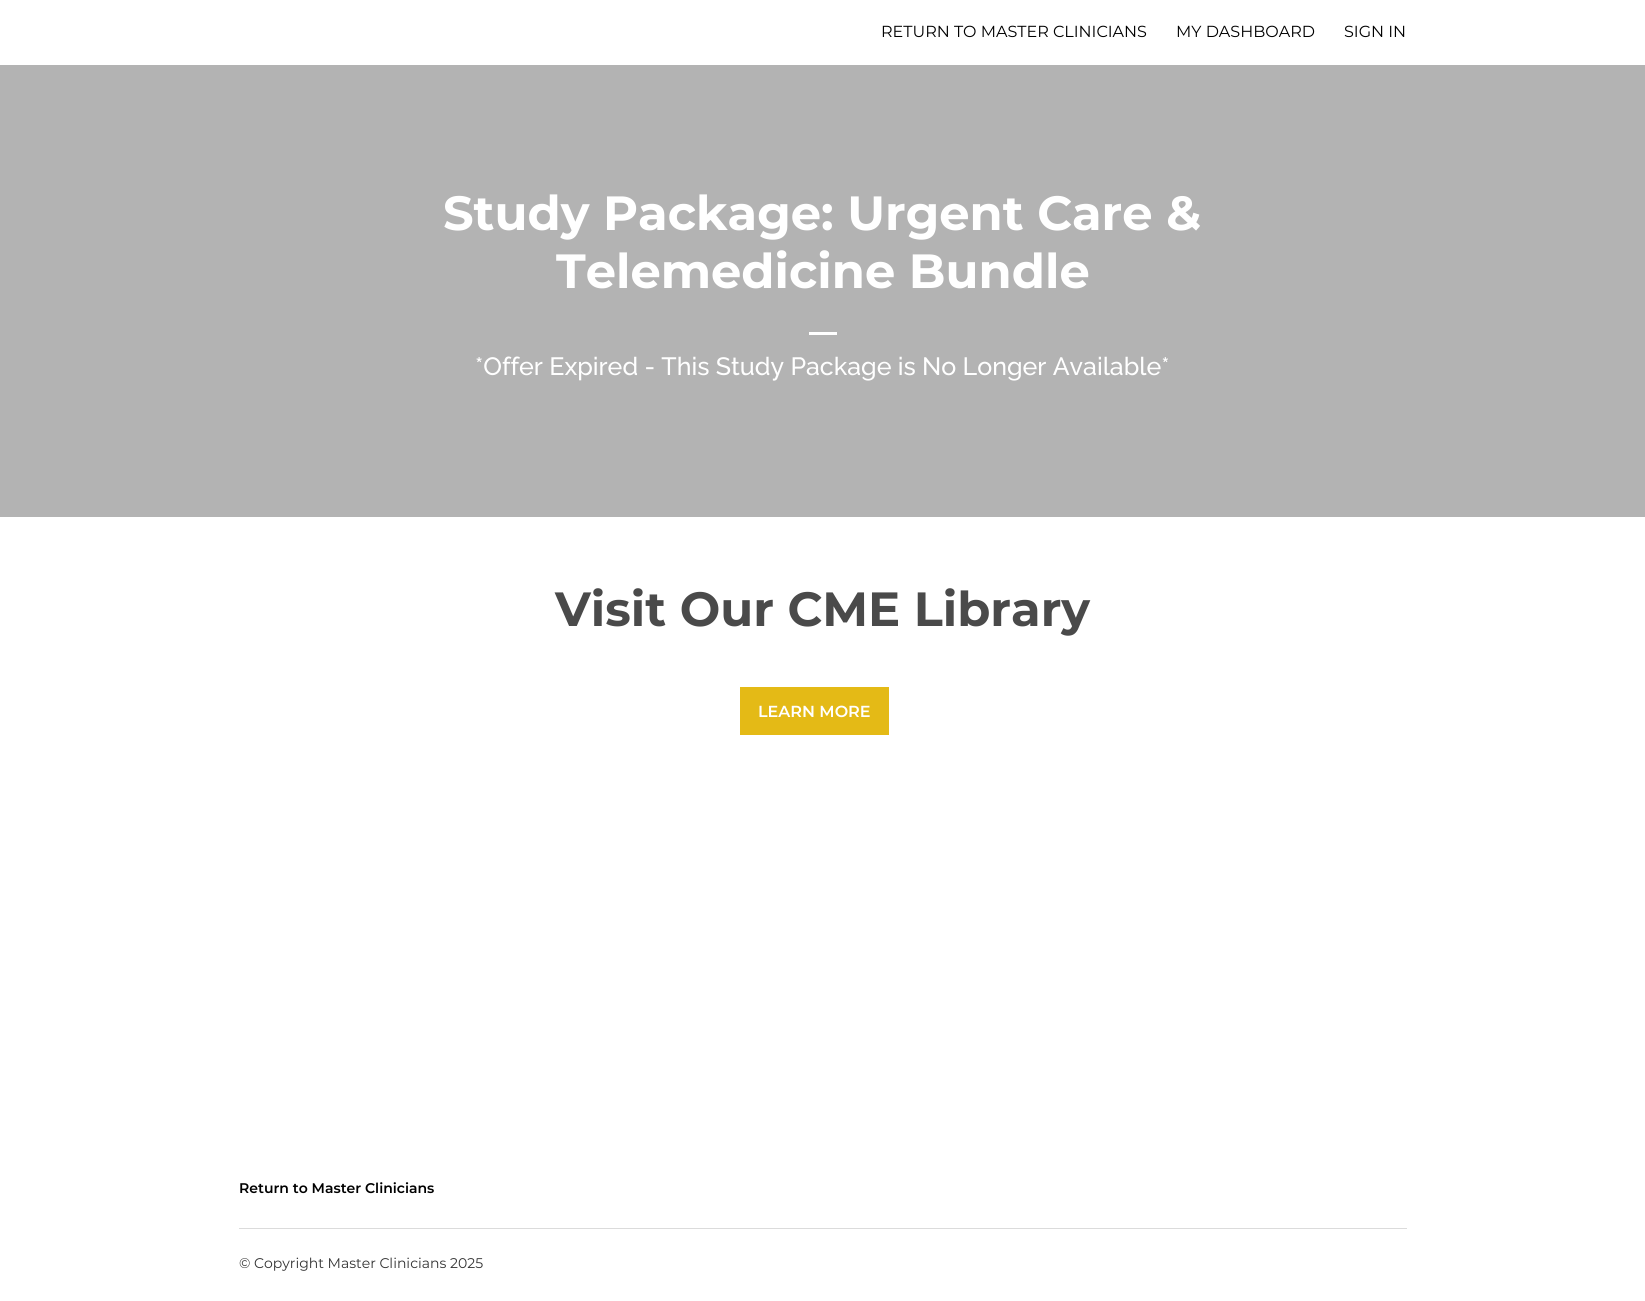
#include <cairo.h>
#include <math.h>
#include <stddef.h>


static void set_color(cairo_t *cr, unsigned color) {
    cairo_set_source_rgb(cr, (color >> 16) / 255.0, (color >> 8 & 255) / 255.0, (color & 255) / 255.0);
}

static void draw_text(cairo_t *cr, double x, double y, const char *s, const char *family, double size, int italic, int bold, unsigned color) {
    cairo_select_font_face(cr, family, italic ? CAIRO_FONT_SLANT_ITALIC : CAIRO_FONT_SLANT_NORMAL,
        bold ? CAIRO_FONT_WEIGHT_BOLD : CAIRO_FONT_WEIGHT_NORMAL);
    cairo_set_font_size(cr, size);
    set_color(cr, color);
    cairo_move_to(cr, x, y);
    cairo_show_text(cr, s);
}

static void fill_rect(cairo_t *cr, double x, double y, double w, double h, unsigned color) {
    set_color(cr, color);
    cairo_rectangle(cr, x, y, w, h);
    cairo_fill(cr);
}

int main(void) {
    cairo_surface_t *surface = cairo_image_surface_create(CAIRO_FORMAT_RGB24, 1645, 1301);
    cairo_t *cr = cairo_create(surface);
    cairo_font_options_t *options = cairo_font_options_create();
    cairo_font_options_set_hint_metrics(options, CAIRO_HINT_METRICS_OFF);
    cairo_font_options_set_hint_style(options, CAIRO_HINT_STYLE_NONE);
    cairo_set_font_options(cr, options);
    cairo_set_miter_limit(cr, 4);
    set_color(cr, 0xFFFFFF);
    cairo_paint(cr);
    draw_text(cr, 881, 37, "RETURN TO MASTER CLINICIANS", "Montserrat", 16, 0, 0, 0x000000);
    draw_text(cr, 1176, 37, "MY DASHBOARD", "Montserrat", 16, 0, 0, 0x000000);
    draw_text(cr, 1344, 37, "SIGN IN", "Montserrat", 16, 0, 0, 0x000000);
    fill_rect(cr, 0, 65, 1645, 452, 0xB3B3B3);
    draw_text(cr, 443, 230, "Study Package: Urgent Care &", "Montserrat", 48, 0, 1, 0xFFFFFF);
    draw_text(cr, 556, 288, "Telemedicine Bundle", "Montserrat", 48, 0, 1, 0xFFFFFF);
    fill_rect(cr, 809, 332, 28, 3, 0xFFFFFF);
    draw_text(cr, 475, 375, "*Offer Expired - This Study Package is No Longer Available*", "Raleway Medium", 25, 0, 0, 0xFFFFFF);
    draw_text(cr, 555, 626, "Visit Our CME Library", "Montserrat", 48, 0, 1, 0x4A4A4A);
    fill_rect(cr, 740, 687, 149, 48, 0xE4BA16);
    draw_text(cr, 758, 717, "LEARN MORE", "Montserrat SemiBold", 16, 0, 0, 0xFFFFFF);
    draw_text(cr, 239, 1193, "Return to Master Clinicians", "Montserrat SemiBold", 14, 0, 0, 0x000000);
    fill_rect(cr, 239, 1228, 1168, 1, 0xDBDBDB);
    draw_text(cr, 239, 1268, "© Copyright Master Clinicians 2025", "Montserrat", 14, 0, 0, 0x333333);
    cairo_surface_write_to_png(surface, "output.png");
    cairo_font_options_destroy(options);
    cairo_destroy(cr);
    cairo_surface_destroy(surface);
    return 0;
}
